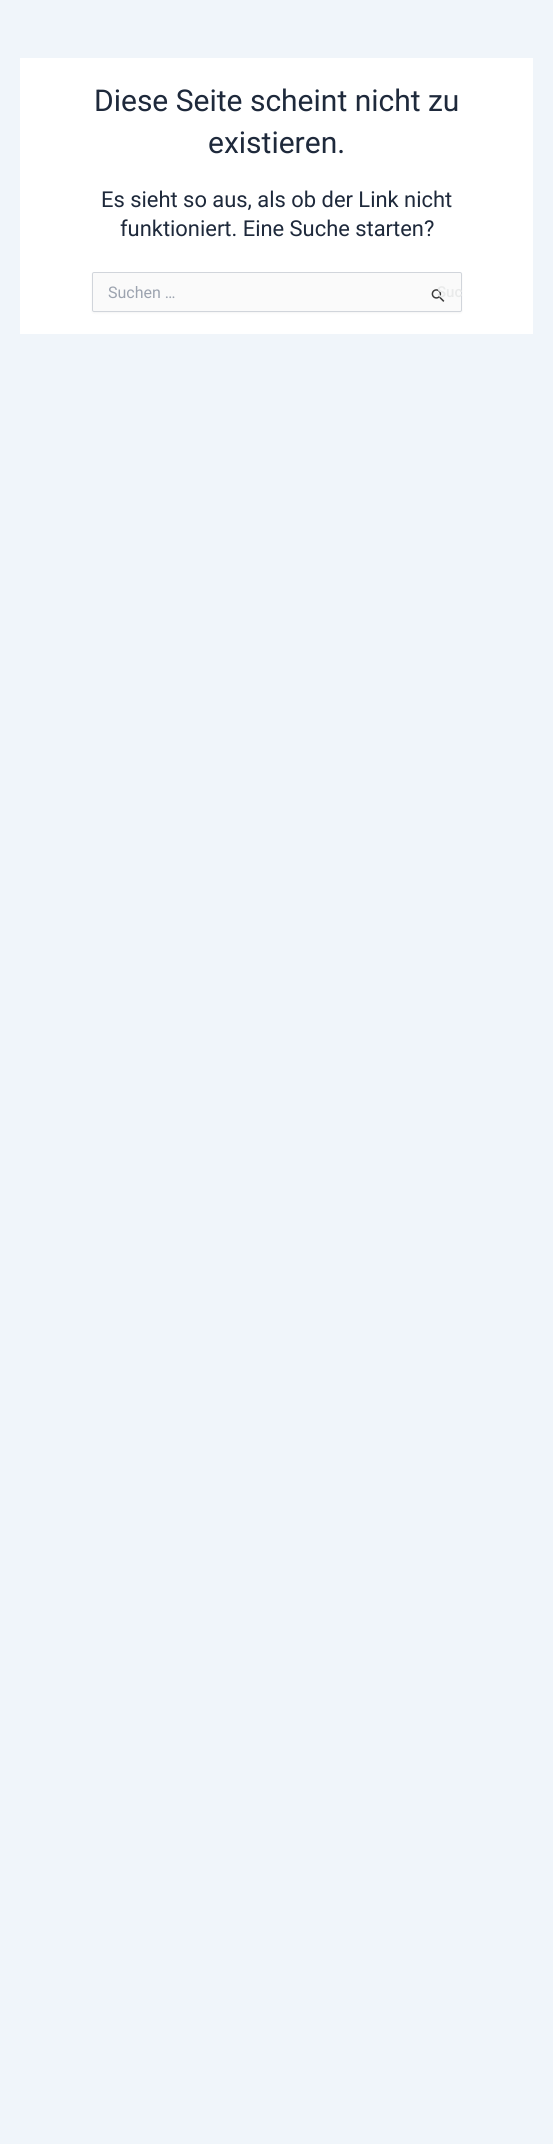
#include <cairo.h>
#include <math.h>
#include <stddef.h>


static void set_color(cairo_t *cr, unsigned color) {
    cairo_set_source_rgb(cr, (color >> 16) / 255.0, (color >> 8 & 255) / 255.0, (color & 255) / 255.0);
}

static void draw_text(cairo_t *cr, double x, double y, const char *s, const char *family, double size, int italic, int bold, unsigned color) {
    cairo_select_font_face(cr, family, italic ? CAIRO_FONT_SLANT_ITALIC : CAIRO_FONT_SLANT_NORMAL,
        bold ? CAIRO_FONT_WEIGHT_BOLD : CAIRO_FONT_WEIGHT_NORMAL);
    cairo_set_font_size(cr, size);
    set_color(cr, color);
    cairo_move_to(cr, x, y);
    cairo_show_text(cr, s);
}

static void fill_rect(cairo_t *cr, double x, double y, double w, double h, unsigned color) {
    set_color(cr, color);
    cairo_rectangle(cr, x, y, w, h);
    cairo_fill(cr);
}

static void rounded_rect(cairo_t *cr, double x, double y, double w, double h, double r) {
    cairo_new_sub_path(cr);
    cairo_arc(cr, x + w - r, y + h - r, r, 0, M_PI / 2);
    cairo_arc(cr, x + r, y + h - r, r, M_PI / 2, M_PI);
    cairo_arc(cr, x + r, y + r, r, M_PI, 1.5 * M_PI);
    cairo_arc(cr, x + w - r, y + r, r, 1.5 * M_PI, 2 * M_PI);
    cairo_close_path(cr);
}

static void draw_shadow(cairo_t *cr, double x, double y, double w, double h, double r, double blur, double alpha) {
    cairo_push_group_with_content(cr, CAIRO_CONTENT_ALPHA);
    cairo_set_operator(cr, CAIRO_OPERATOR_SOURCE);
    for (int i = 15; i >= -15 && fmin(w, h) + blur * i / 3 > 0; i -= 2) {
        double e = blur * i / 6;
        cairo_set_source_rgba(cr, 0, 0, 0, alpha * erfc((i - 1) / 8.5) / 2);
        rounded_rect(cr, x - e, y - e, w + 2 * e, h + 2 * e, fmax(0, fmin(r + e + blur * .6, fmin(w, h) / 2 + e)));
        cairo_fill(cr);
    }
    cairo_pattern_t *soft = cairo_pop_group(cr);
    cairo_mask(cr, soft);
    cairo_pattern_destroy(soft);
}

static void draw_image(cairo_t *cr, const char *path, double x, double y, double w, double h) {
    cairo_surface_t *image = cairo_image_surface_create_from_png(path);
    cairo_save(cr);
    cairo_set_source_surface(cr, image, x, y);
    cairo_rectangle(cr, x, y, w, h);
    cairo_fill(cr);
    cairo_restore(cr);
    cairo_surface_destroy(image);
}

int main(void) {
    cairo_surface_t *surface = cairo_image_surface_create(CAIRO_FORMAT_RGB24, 553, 2144);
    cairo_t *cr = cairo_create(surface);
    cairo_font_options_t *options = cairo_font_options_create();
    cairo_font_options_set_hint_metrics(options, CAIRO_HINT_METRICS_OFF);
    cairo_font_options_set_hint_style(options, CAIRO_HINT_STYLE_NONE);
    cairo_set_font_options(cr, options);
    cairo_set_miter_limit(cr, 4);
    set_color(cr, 0xF0F5FA);
    cairo_paint(cr);
    fill_rect(cr, 20, 58, 513, 276, 0xFFFFFF);
    draw_text(cr, 94, 111, "Diese Seite scheint nicht zu", "Roboto", 30, 0, 0, 0x1E293B);
    draw_text(cr, 208, 153, "existieren.", "Roboto", 30, 0, 0, 0x1E293B);
    draw_text(cr, 101, 207, "Es sieht so aus, als ob der Link nicht", "Roboto", 21.9, 0, 0, 0x1E293B);
    draw_text(cr, 120, 236, "funktioniert. Eine Suche starten?", "Roboto", 21.9, 0, 0, 0x1E293B);
    set_color(cr, 0x000000);
    draw_shadow(cr, 92, 273, 370, 40, 2, 1, 0.05);
    set_color(cr, 0xFAFAFA);
    rounded_rect(cr, 92.5, 272.5, 369, 39, 1.5);
    cairo_fill_preserve(cr);
    set_color(cr, 0xD1D5DB);
    cairo_set_line_width(cr, 1);
    cairo_stroke(cr);
    draw_text(cr, 108, 298, "Suchen …", "Roboto", 16, 0, 0, 0x9CA3AF);
    draw_image(cr, "assets/img1.png", 431, 289, 14, 13);
    draw_text(cr, 437, 297, "Suc", "Roboto Medium", 15, 0, 0, 0xE9EAEA);
    cairo_surface_write_to_png(surface, "output.png");
    cairo_font_options_destroy(options);
    cairo_destroy(cr);
    cairo_surface_destroy(surface);
    return 0;
}
